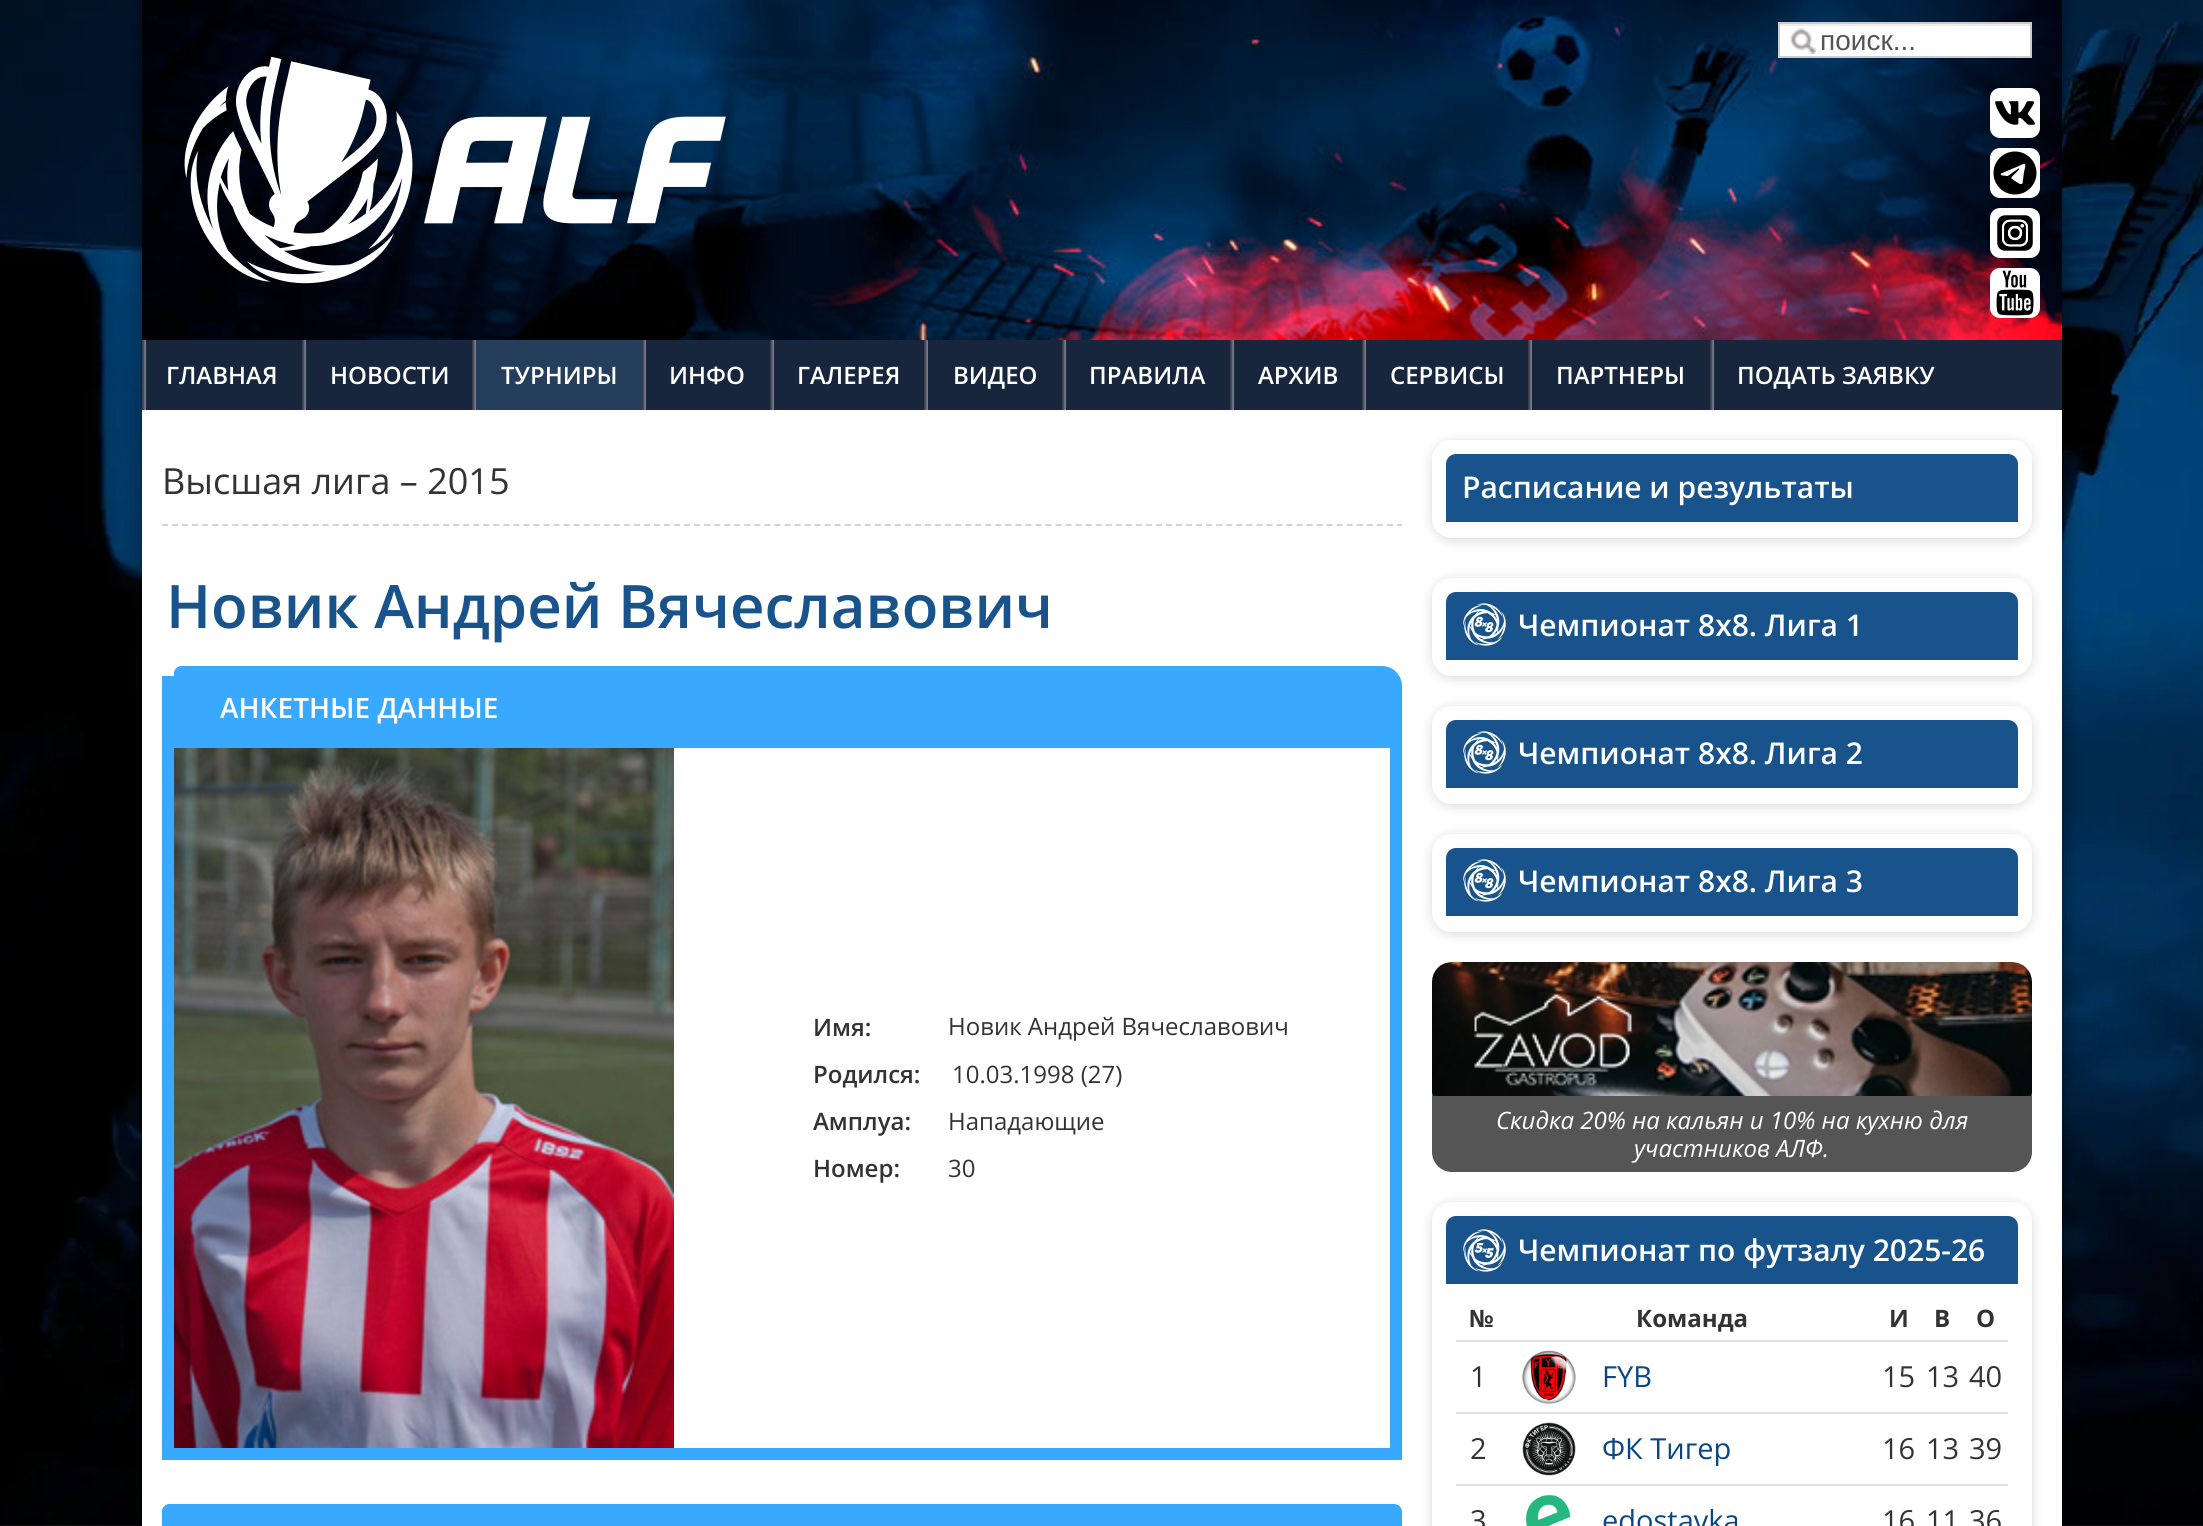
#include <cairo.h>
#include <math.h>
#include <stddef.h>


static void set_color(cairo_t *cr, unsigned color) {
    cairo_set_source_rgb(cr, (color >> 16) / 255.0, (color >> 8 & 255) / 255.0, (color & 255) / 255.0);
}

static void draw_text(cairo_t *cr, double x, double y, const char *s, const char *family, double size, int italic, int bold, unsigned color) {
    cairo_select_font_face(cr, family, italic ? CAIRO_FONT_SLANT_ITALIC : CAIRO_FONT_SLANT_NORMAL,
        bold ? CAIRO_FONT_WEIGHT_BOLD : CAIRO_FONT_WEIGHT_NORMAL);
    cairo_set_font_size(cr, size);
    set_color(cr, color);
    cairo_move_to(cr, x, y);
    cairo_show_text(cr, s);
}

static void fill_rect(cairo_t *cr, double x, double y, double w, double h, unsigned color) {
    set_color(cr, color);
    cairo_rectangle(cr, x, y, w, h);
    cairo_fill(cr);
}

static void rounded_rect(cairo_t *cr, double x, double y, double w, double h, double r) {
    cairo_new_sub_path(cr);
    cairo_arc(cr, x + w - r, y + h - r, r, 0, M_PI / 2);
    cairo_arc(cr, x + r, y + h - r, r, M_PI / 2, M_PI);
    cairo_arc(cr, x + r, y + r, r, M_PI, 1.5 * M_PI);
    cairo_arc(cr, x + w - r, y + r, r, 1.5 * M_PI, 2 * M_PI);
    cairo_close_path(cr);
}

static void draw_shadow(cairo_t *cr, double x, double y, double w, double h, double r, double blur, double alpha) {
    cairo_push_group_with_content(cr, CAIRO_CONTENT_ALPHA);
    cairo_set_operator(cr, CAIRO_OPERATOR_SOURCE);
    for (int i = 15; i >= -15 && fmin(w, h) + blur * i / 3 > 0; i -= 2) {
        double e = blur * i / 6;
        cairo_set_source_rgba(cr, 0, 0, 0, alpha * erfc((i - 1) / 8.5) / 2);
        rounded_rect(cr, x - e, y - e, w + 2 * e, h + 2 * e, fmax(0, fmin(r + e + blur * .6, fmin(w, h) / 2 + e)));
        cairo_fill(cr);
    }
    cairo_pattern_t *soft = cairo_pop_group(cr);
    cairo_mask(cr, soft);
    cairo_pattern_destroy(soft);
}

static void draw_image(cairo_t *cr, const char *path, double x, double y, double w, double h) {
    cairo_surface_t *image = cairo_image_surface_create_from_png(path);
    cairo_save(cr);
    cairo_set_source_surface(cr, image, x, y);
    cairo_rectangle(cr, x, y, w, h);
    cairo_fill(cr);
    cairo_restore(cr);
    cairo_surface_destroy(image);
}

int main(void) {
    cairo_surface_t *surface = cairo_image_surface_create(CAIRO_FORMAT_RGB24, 2203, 1526);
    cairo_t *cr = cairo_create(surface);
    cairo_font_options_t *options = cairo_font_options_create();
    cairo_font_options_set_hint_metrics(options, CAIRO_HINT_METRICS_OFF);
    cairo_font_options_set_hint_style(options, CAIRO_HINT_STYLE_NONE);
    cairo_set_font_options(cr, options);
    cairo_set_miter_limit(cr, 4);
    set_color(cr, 0xFFFFFF);
    cairo_paint(cr);
    draw_image(cr, "assets/img1.png", 0, 0, 2203, 1526);
    set_color(cr, 0x000000);
    draw_shadow(cr, 142, 0, 1920, 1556, 0, 10, 0.5);
    draw_image(cr, "assets/img2.png", 142, 0, 1920, 340);
    fill_rect(cr, 1780, 26, 250, 30, 0xFFFFFF);
    draw_image(cr, "assets/img3.png", 1790, 28, 26, 26);
    fill_rect(cr, 1780, 24, 250, 2, 0xECECEC);
    cairo_rectangle(cr, 1779, 23, 252, 34);
    set_color(cr, 0xCCCCCC);
    cairo_stroke(cr);
    draw_text(cr, 1820, 50, "поиск...", "Liberation Sans", 28, 0, 0, 0x555555);
    set_color(cr, 0xFFFFFF);
    rounded_rect(cr, 1990, 88, 50, 50, 10);
    cairo_fill(cr);
    draw_image(cr, "assets/img4.png", 1995, 101, 40, 24);
    rounded_rect(cr, 1990, 148, 50, 50, 10);
    cairo_fill(cr);
    draw_image(cr, "assets/img5.png", 1993, 151, 44, 44);
    rounded_rect(cr, 1990, 208, 50, 50, 10);
    cairo_fill(cr);
    draw_image(cr, "assets/img6.png", 1997, 215, 36, 36);
    rounded_rect(cr, 1990, 268, 50, 50, 10);
    cairo_fill(cr);
    draw_image(cr, "assets/img7.png", 1996, 270, 38, 46);
    draw_image(cr, "assets/img8.png", 184, 56, 542, 228);
    fill_rect(cr, 142, 340, 1920, 70, 0x17263D);
    draw_image(cr, "assets/img9.png", 142, 340, 4, 70);
    draw_text(cr, 166, 384, "ГЛАВНАЯ", "Open Sans SemiBold", 24, 0, 0, 0xFEFEFE);
    draw_image(cr, "assets/img9.png", 302, 340, 4, 70);
    draw_text(cr, 330, 384, "НОВОСТИ", "Open Sans SemiBold", 24, 0, 0, 0xFEFEFE);
    draw_image(cr, "assets/img9.png", 472, 340, 4, 70);
    fill_rect(cr, 476, 340, 166, 70, 0x253E5B);
    draw_text(cr, 501, 384, "ТУРНИРЫ", "Open Sans SemiBold", 24, 0, 0, 0xFEFEFE);
    draw_image(cr, "assets/img9.png", 642, 340, 4, 70);
    draw_text(cr, 669, 384, "ИНФО", "Open Sans SemiBold", 24, 0, 0, 0xFEFEFE);
    draw_image(cr, "assets/img9.png", 770, 340, 4, 70);
    draw_text(cr, 797, 384, "ГАЛЕРЕЯ", "Open Sans SemiBold", 24, 0, 0, 0xFEFEFE);
    draw_image(cr, "assets/img9.png", 924, 340, 4, 70);
    draw_text(cr, 953, 384, "ВИДЕО", "Open Sans SemiBold", 24, 0, 0, 0xFEFEFE);
    draw_image(cr, "assets/img9.png", 1062, 340, 4, 70);
    draw_text(cr, 1089, 384, "ПРАВИЛА", "Open Sans SemiBold", 24, 0, 0, 0xFEFEFE);
    draw_image(cr, "assets/img9.png", 1230, 340, 4, 70);
    draw_text(cr, 1258, 384, "АРХИВ", "Open Sans SemiBold", 24, 0, 0, 0xFEFEFE);
    draw_image(cr, "assets/img9.png", 1362, 340, 4, 70);
    draw_text(cr, 1390, 384, "СЕРВИСЫ", "Open Sans SemiBold", 24, 0, 0, 0xFEFEFE);
    draw_image(cr, "assets/img9.png", 1528, 340, 4, 70);
    draw_text(cr, 1556, 384, "ПАРТНЕРЫ", "Open Sans SemiBold", 24, 0, 0, 0xFEFEFE);
    draw_image(cr, "assets/img9.png", 1710, 340, 4, 70);
    draw_text(cr, 1737, 384, "ПОДАТЬ ЗАЯВКУ", "Open Sans SemiBold", 24, 0, 0, 0xFEFEFE);
    fill_rect(cr, 142, 410, 1920, 1116, 0xFFFFFF);
    cairo_new_path(cr);
    cairo_move_to(cr, 162, 525);
    cairo_line_to(cr, 1402, 525);
    set_color(cr, 0xD3D3D3);
    cairo_set_dash(cr, (double[]){6, 4.04}, 2, 0);
    cairo_stroke(cr);
    draw_text(cr, 162, 494, "Высшая лига – 2015", "Open Sans", 36, 0, 0, 0x333333);
    draw_text(cr, 166, 628, "Новик Андрей Вячеславович", "Open Sans SemiBold", 60, 0, 0, 0x19538B);
    fill_rect(cr, 162, 676, 12, 784, 0x38A9FF);
    cairo_new_path(cr);
    cairo_move_to(cr, 182, 666);
    cairo_line_to(cr, 1382, 666);
    cairo_curve_to(cr, 1393, 666, 1402, 675, 1402, 686);
    cairo_line_to(cr, 1402, 748);
    cairo_line_to(cr, 174, 748);
    cairo_line_to(cr, 174, 674);
    cairo_curve_to(cr, 174, 669.5, 177.5, 666, 182, 666);
    cairo_close_path(cr);
    cairo_fill(cr);
    cairo_new_path(cr);
    cairo_move_to(cr, 182, 666);
    cairo_line_to(cr, 186, 666);
    cairo_line_to(cr, 186, 748);
    cairo_line_to(cr, 174, 748);
    cairo_line_to(cr, 174, 674);
    cairo_curve_to(cr, 174, 669.5, 177.5, 666, 182, 666);
    cairo_close_path(cr);
    cairo_fill(cr);
    draw_text(cr, 220, 718, "АНКЕТНЫЕ ДАННЫЕ", "Open Sans SemiBold", 28, 0, 0, 0xFEFEFE);
    fill_rect(cr, 174, 1448, 1228, 12, 0x38A9FF);
    draw_image(cr, "assets/img10.png", 174, 748, 500, 700);
    fill_rect(cr, 1390, 748, 12, 700, 0x38A9FF);
    draw_text(cr, 813, 1036, "Имя:", "Open Sans SemiBold", 24, 0, 0, 0x333333);
    draw_text(cr, 948, 1035, "Новик Андрей Вячеславович", "Open Sans", 24, 0, 0, 0x333333);
    draw_text(cr, 813, 1083, "Родился:", "Open Sans SemiBold", 24, 0, 0, 0x333333);
    draw_text(cr, 952, 1083, "10.03.1998 (27)", "Open Sans", 24, 0, 0, 0x333333);
    draw_text(cr, 813, 1130, "Амплуа:", "Open Sans SemiBold", 24, 0, 0, 0x333333);
    draw_text(cr, 948, 1130, "Нападающие", "Open Sans", 24, 0, 0, 0x333333);
    draw_text(cr, 813, 1177, "Номер:", "Open Sans SemiBold", 24, 0, 0, 0x333333);
    draw_text(cr, 948, 1177, "30", "Open Sans", 24, 0, 0, 0x333333);
    set_color(cr, 0x38A9FF);
    cairo_new_path(cr);
    cairo_move_to(cr, 170, 1504);
    cairo_line_to(cr, 1394, 1504);
    cairo_curve_to(cr, 1398.5, 1504, 1402, 1507.5, 1402, 1512);
    cairo_line_to(cr, 1402, 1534);
    cairo_line_to(cr, 162, 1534);
    cairo_line_to(cr, 162, 1512);
    cairo_curve_to(cr, 162, 1507.5, 165.5, 1504, 170, 1504);
    cairo_close_path(cr);
    cairo_fill(cr);
    cairo_new_path(cr);
    cairo_move_to(cr, 170, 1504);
    cairo_line_to(cr, 174, 1504);
    cairo_line_to(cr, 174, 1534);
    cairo_line_to(cr, 162, 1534);
    cairo_line_to(cr, 162, 1512);
    cairo_curve_to(cr, 162, 1507.5, 165.5, 1504, 170, 1504);
    cairo_close_path(cr);
    cairo_fill(cr);
    cairo_save(cr);
    cairo_set_fill_rule(cr, CAIRO_FILL_RULE_EVEN_ODD);
    cairo_new_path(cr);
    cairo_move_to(cr, 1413, 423);
    cairo_line_to(cr, 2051, 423);
    cairo_line_to(cr, 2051, 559);
    cairo_line_to(cr, 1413, 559);
    cairo_close_path(cr);
    cairo_move_to(cr, 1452, 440);
    cairo_line_to(cr, 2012, 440);
    cairo_curve_to(cr, 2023, 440, 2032, 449, 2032, 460);
    cairo_line_to(cr, 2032, 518);
    cairo_curve_to(cr, 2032, 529, 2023, 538, 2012, 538);
    cairo_line_to(cr, 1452, 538);
    cairo_curve_to(cr, 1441, 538, 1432, 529, 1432, 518);
    cairo_line_to(cr, 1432, 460);
    cairo_curve_to(cr, 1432, 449, 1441, 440, 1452, 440);
    cairo_close_path(cr);
    cairo_clip(cr);
    set_color(cr, 0x000000);
    draw_shadow(cr, 1432, 442, 600, 98, 20, 6, 0.15);
    cairo_restore(cr);
    set_color(cr, 0x19538B);
    cairo_new_path(cr);
    cairo_move_to(cr, 1456, 454);
    cairo_line_to(cr, 2008, 454);
    cairo_curve_to(cr, 2013.5, 454, 2018, 458.5, 2018, 464);
    cairo_line_to(cr, 2018, 522);
    cairo_line_to(cr, 1446, 522);
    cairo_line_to(cr, 1446, 464);
    cairo_curve_to(cr, 1446, 458.5, 1450.5, 454, 1456, 454);
    cairo_close_path(cr);
    cairo_fill(cr);
    draw_text(cr, 1462, 498, "Расписание и результаты", "Open Sans SemiBold", 30, 0, 0, 0xFEFEFE);
    cairo_save(cr);
    cairo_set_fill_rule(cr, CAIRO_FILL_RULE_EVEN_ODD);
    cairo_new_path(cr);
    cairo_move_to(cr, 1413, 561);
    cairo_line_to(cr, 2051, 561);
    cairo_line_to(cr, 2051, 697);
    cairo_line_to(cr, 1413, 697);
    cairo_close_path(cr);
    cairo_move_to(cr, 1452, 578);
    cairo_line_to(cr, 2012, 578);
    cairo_curve_to(cr, 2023, 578, 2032, 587, 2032, 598);
    cairo_line_to(cr, 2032, 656);
    cairo_curve_to(cr, 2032, 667, 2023, 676, 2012, 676);
    cairo_line_to(cr, 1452, 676);
    cairo_curve_to(cr, 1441, 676, 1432, 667, 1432, 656);
    cairo_line_to(cr, 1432, 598);
    cairo_curve_to(cr, 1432, 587, 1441, 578, 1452, 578);
    cairo_close_path(cr);
    cairo_clip(cr);
    set_color(cr, 0x000000);
    draw_shadow(cr, 1432, 580, 600, 98, 20, 6, 0.15);
    cairo_restore(cr);
    set_color(cr, 0x19538B);
    cairo_new_path(cr);
    cairo_move_to(cr, 1456, 592);
    cairo_line_to(cr, 2008, 592);
    cairo_curve_to(cr, 2013.5, 592, 2018, 596.5, 2018, 602);
    cairo_line_to(cr, 2018, 660);
    cairo_line_to(cr, 1446, 660);
    cairo_line_to(cr, 1446, 602);
    cairo_curve_to(cr, 1446, 596.5, 1450.5, 592, 1456, 592);
    cairo_close_path(cr);
    cairo_fill(cr);
    draw_image(cr, "assets/img11.png", 1463, 603, 43, 43);
    draw_text(cr, 1518, 636, "Чемпионат 8х8. Лига 1", "Open Sans SemiBold", 30, 0, 0, 0xFEFEFE);
    cairo_save(cr);
    cairo_set_fill_rule(cr, CAIRO_FILL_RULE_EVEN_ODD);
    cairo_new_path(cr);
    cairo_move_to(cr, 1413, 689);
    cairo_line_to(cr, 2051, 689);
    cairo_line_to(cr, 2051, 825);
    cairo_line_to(cr, 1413, 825);
    cairo_close_path(cr);
    cairo_move_to(cr, 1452, 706);
    cairo_line_to(cr, 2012, 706);
    cairo_curve_to(cr, 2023, 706, 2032, 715, 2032, 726);
    cairo_line_to(cr, 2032, 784);
    cairo_curve_to(cr, 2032, 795, 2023, 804, 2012, 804);
    cairo_line_to(cr, 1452, 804);
    cairo_curve_to(cr, 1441, 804, 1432, 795, 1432, 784);
    cairo_line_to(cr, 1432, 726);
    cairo_curve_to(cr, 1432, 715, 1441, 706, 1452, 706);
    cairo_close_path(cr);
    cairo_clip(cr);
    set_color(cr, 0x000000);
    draw_shadow(cr, 1432, 708, 600, 98, 20, 6, 0.15);
    cairo_restore(cr);
    set_color(cr, 0x19538B);
    cairo_new_path(cr);
    cairo_move_to(cr, 1456, 720);
    cairo_line_to(cr, 2008, 720);
    cairo_curve_to(cr, 2013.5, 720, 2018, 724.5, 2018, 730);
    cairo_line_to(cr, 2018, 788);
    cairo_line_to(cr, 1446, 788);
    cairo_line_to(cr, 1446, 730);
    cairo_curve_to(cr, 1446, 724.5, 1450.5, 720, 1456, 720);
    cairo_close_path(cr);
    cairo_fill(cr);
    draw_image(cr, "assets/img11.png", 1463, 731, 43, 43);
    draw_text(cr, 1518, 764, "Чемпионат 8х8. Лига 2", "Open Sans SemiBold", 30, 0, 0, 0xFEFEFE);
    cairo_save(cr);
    cairo_set_fill_rule(cr, CAIRO_FILL_RULE_EVEN_ODD);
    cairo_new_path(cr);
    cairo_move_to(cr, 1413, 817);
    cairo_line_to(cr, 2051, 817);
    cairo_line_to(cr, 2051, 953);
    cairo_line_to(cr, 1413, 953);
    cairo_close_path(cr);
    cairo_move_to(cr, 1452, 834);
    cairo_line_to(cr, 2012, 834);
    cairo_curve_to(cr, 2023, 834, 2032, 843, 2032, 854);
    cairo_line_to(cr, 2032, 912);
    cairo_curve_to(cr, 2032, 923, 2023, 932, 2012, 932);
    cairo_line_to(cr, 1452, 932);
    cairo_curve_to(cr, 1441, 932, 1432, 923, 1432, 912);
    cairo_line_to(cr, 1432, 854);
    cairo_curve_to(cr, 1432, 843, 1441, 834, 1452, 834);
    cairo_close_path(cr);
    cairo_clip(cr);
    set_color(cr, 0x000000);
    draw_shadow(cr, 1432, 836, 600, 98, 20, 6, 0.15);
    cairo_restore(cr);
    set_color(cr, 0x19538B);
    cairo_new_path(cr);
    cairo_move_to(cr, 1456, 848);
    cairo_line_to(cr, 2008, 848);
    cairo_curve_to(cr, 2013.5, 848, 2018, 852.5, 2018, 858);
    cairo_line_to(cr, 2018, 916);
    cairo_line_to(cr, 1446, 916);
    cairo_line_to(cr, 1446, 858);
    cairo_curve_to(cr, 1446, 852.5, 1450.5, 848, 1456, 848);
    cairo_close_path(cr);
    cairo_fill(cr);
    draw_image(cr, "assets/img11.png", 1463, 859, 43, 43);
    draw_text(cr, 1518, 892, "Чемпионат 8х8. Лига 3", "Open Sans SemiBold", 30, 0, 0, 0xFEFEFE);
    draw_image(cr, "assets/img12.png", 1432, 962, 600, 134);
    set_color(cr, 0x555555);
    cairo_new_path(cr);
    cairo_move_to(cr, 1432, 1096);
    cairo_line_to(cr, 2032, 1096);
    cairo_line_to(cr, 2032, 1152);
    cairo_curve_to(cr, 2032, 1163, 2023, 1172, 2012, 1172);
    cairo_line_to(cr, 1452, 1172);
    cairo_curve_to(cr, 1441, 1172, 1432, 1163, 1432, 1152);
    cairo_close_path(cr);
    cairo_fill(cr);
    draw_text(cr, 1496, 1129, "Скидка 20% на кальян и 10% на кухню для", "Open Sans", 24, 1, 0, 0xFEFEFE);
    draw_text(cr, 1634, 1157, "участников АЛФ.", "Open Sans", 24, 1, 0, 0xFEFEFE);
    cairo_save(cr);
    cairo_set_fill_rule(cr, CAIRO_FILL_RULE_EVEN_ODD);
    cairo_new_path(cr);
    cairo_move_to(cr, 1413, 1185);
    cairo_line_to(cr, 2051, 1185);
    cairo_line_to(cr, 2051, 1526);
    cairo_line_to(cr, 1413, 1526);
    cairo_close_path(cr);
    cairo_move_to(cr, 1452, 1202);
    cairo_line_to(cr, 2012, 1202);
    cairo_curve_to(cr, 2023, 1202, 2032, 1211, 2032, 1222);
    cairo_line_to(cr, 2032, 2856);
    cairo_curve_to(cr, 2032, 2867, 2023, 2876, 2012, 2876);
    cairo_line_to(cr, 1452, 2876);
    cairo_curve_to(cr, 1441, 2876, 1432, 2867, 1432, 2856);
    cairo_line_to(cr, 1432, 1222);
    cairo_curve_to(cr, 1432, 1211, 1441, 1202, 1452, 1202);
    cairo_close_path(cr);
    cairo_clip(cr);
    set_color(cr, 0x000000);
    draw_shadow(cr, 1432, 1204, 600, 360, 20, 6, 0.15);
    cairo_restore(cr);
    set_color(cr, 0x19538B);
    cairo_new_path(cr);
    cairo_move_to(cr, 1456, 1216);
    cairo_line_to(cr, 2008, 1216);
    cairo_curve_to(cr, 2013.5, 1216, 2018, 1220.5, 2018, 1226);
    cairo_line_to(cr, 2018, 1284);
    cairo_line_to(cr, 1446, 1284);
    cairo_line_to(cr, 1446, 1226);
    cairo_curve_to(cr, 1446, 1220.5, 1450.5, 1216, 1456, 1216);
    cairo_close_path(cr);
    cairo_fill(cr);
    draw_image(cr, "assets/img13.png", 1463, 1229, 43, 43);
    draw_text(cr, 1518, 1261, "Чемпионат по футзалу 2025-26", "Open Sans SemiBold", 30, 0, 0, 0xFEFEFE);
    draw_text(cr, 1469, 1327, "№", "Open Sans", 24, 0, 1, 0x333333);
    draw_text(cr, 1636, 1327, "Команда", "Open Sans", 24, 0, 1, 0x333333);
    draw_text(cr, 1889, 1327, "И", "Open Sans", 24, 0, 1, 0x333333);
    draw_text(cr, 1934, 1327, "В", "Open Sans", 24, 0, 1, 0x333333);
    draw_text(cr, 1976, 1327, "О", "Open Sans", 24, 0, 1, 0x333333);
    fill_rect(cr, 1456, 1340, 552, 2, 0xE0E0E0);
    draw_text(cr, 1470, 1387, "1", "Open Sans", 29, 0, 0, 0x333333);
    draw_image(cr, "assets/img14.png", 1522, 1350, 54, 54);
    draw_text(cr, 1602, 1387, "FYB", "Open Sans", 29, 0, 0, 0x0B4784);
    draw_text(cr, 1882, 1387, "15", "Open Sans", 29, 0, 0, 0x333333);
    draw_text(cr, 1926, 1387, "13", "Open Sans", 29, 0, 0, 0x333333);
    draw_text(cr, 1969, 1387, "40", "Open Sans", 29, 0, 0, 0x333333);
    fill_rect(cr, 1456, 1412, 552, 2, 0xE0E0E0);
    draw_text(cr, 1470, 1459, "2", "Open Sans", 29, 0, 0, 0x333333);
    draw_image(cr, "assets/img15.png", 1522, 1422, 54, 54);
    draw_text(cr, 1602, 1459, "ФК Тигер", "Open Sans", 29, 0, 0, 0x0B4784);
    draw_text(cr, 1882, 1459, "16", "Open Sans", 29, 0, 0, 0x333333);
    draw_text(cr, 1926, 1459, "13", "Open Sans", 29, 0, 0, 0x333333);
    draw_text(cr, 1969, 1459, "39", "Open Sans", 29, 0, 0, 0x333333);
    fill_rect(cr, 1456, 1484, 552, 2, 0xE0E0E0);
    draw_text(cr, 1470, 1531, "3", "Open Sans", 29, 0, 0, 0x333333);
    draw_image(cr, "assets/img16.png", 1525, 1494, 46, 32);
    draw_text(cr, 1602, 1531, "edostavka", "Open Sans", 29, 0, 0, 0x0B4784);
    draw_text(cr, 1882, 1531, "16", "Open Sans", 29, 0, 0, 0x333333);
    draw_text(cr, 1926, 1531, "11", "Open Sans", 29, 0, 0, 0x333333);
    draw_text(cr, 1969, 1531, "36", "Open Sans", 29, 0, 0, 0x333333);
    cairo_surface_write_to_png(surface, "output.png");
    cairo_font_options_destroy(options);
    cairo_destroy(cr);
    cairo_surface_destroy(surface);
    return 0;
}
